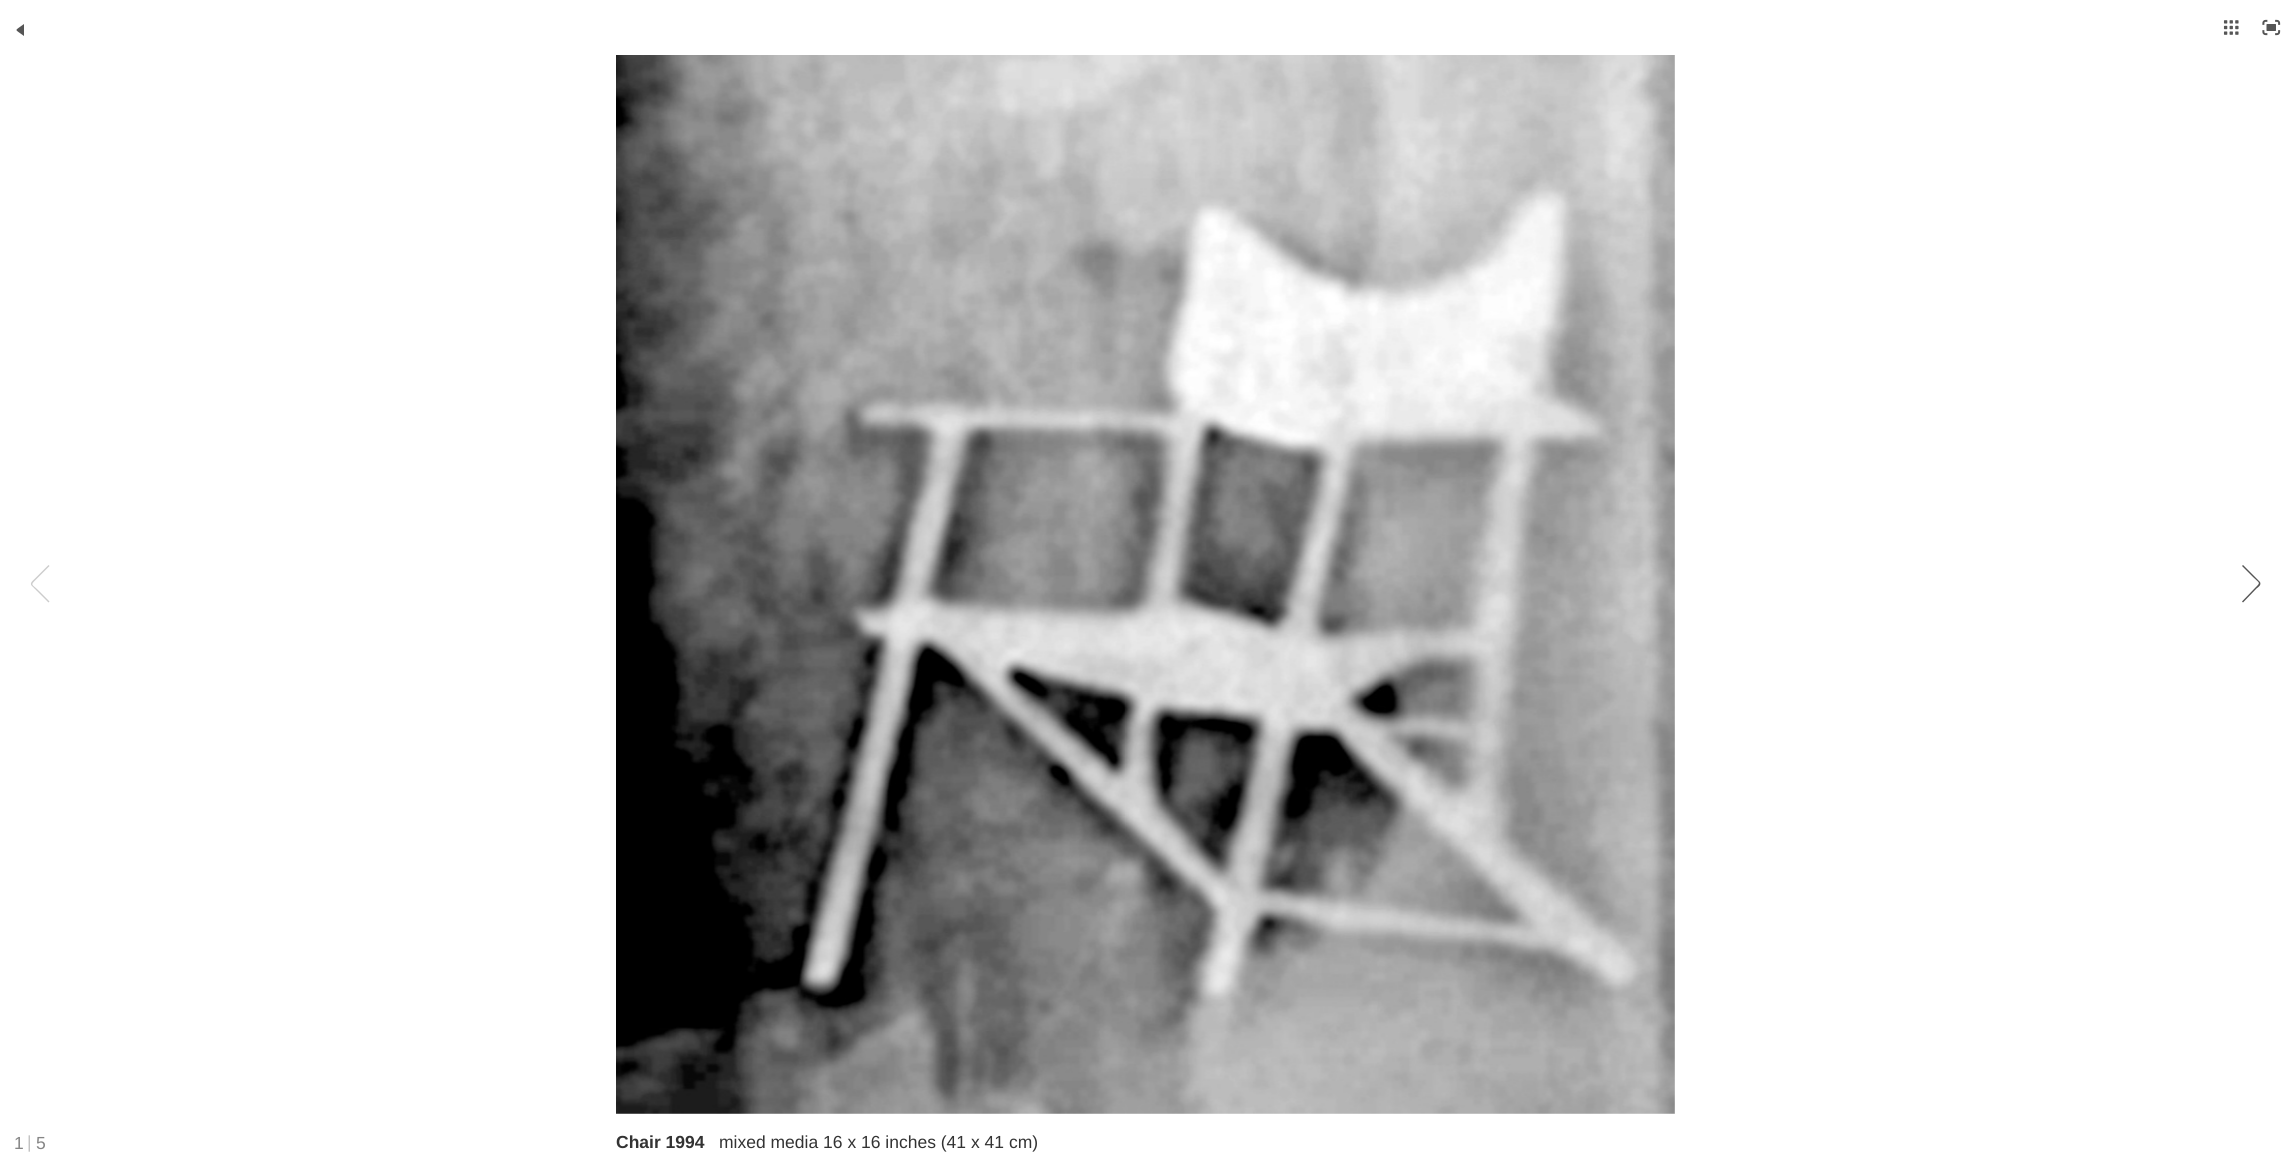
#include <cairo.h>
#include <math.h>
#include <stddef.h>


static void set_color(cairo_t *cr, unsigned color) {
    cairo_set_source_rgb(cr, (color >> 16) / 255.0, (color >> 8 & 255) / 255.0, (color & 255) / 255.0);
}

static void draw_text(cairo_t *cr, double x, double y, const char *s, const char *family, double size, int italic, int bold, unsigned color) {
    cairo_select_font_face(cr, family, italic ? CAIRO_FONT_SLANT_ITALIC : CAIRO_FONT_SLANT_NORMAL,
        bold ? CAIRO_FONT_WEIGHT_BOLD : CAIRO_FONT_WEIGHT_NORMAL);
    cairo_set_font_size(cr, size);
    set_color(cr, color);
    cairo_move_to(cr, x, y);
    cairo_show_text(cr, s);
}

static void draw_image(cairo_t *cr, const char *path, double x, double y, double w, double h) {
    cairo_surface_t *image = cairo_image_surface_create_from_png(path);
    cairo_save(cr);
    cairo_set_source_surface(cr, image, x, y);
    cairo_rectangle(cr, x, y, w, h);
    cairo_fill(cr);
    cairo_restore(cr);
    cairo_surface_destroy(image);
}

int main(void) {
    cairo_surface_t *surface = cairo_image_surface_create(CAIRO_FORMAT_RGB24, 2291, 1168);
    cairo_t *cr = cairo_create(surface);
    cairo_font_options_t *options = cairo_font_options_create();
    cairo_font_options_set_hint_metrics(options, CAIRO_HINT_METRICS_OFF);
    cairo_font_options_set_hint_style(options, CAIRO_HINT_STYLE_NONE);
    cairo_set_font_options(cr, options);
    cairo_set_miter_limit(cr, 4);
    set_color(cr, 0xFFFFFF);
    cairo_paint(cr);
    set_color(cr, 0x555555);
    cairo_new_path(cr);
    cairo_move_to(cr, 24, 36);
    cairo_curve_to(cr, 14, 28.5, 14, 31.5, 24, 24);
    cairo_close_path(cr);
    cairo_fill(cr);
    draw_image(cr, "assets/img1.png", 2223, 20, 16, 15);
    draw_image(cr, "assets/img2.png", 2262, 19, 19, 17);
    set_color(cr, 0xCCCCCC);
    cairo_new_path(cr);
    cairo_move_to(cr, 48.5, 602.5);
    cairo_line_to(cr, 31.5, 585.5);
    cairo_curve_to(cr, 29.5, 583, 33, 580.5, 34.5, 579);
    cairo_line_to(cr, 48.5, 565);
    cairo_line_to(cr, 49.5, 566);
    cairo_line_to(cr, 35.5, 580);
    cairo_curve_to(cr, 30, 585.5, 32, 584, 38.5, 590.5);
    cairo_line_to(cr, 49.5, 601.5);
    cairo_close_path(cr);
    cairo_fill(cr);
    draw_image(cr, "assets/img3.png", 616, 55, 1059, 1059);
    set_color(cr, 0x555555);
    cairo_new_path(cr);
    cairo_move_to(cr, 2243, 565);
    cairo_line_to(cr, 2260, 582);
    cairo_curve_to(cr, 2261.5, 585, 2258.5, 587, 2256.5, 588.5);
    cairo_line_to(cr, 2243, 602.5);
    cairo_line_to(cr, 2242, 601.5);
    cairo_line_to(cr, 2255.5, 587.5);
    cairo_curve_to(cr, 2261, 582, 2259.5, 583.5, 2253, 577);
    cairo_line_to(cr, 2242, 566);
    cairo_close_path(cr);
    cairo_fill(cr);
    draw_text(cr, 14, 1149, "1", "Liberation Sans", 17.5, 0, 0, 0x858585);
    draw_text(cr, 27, 1148, "|", "Liberation Sans", 17.5, 0, 0, 0xC2C2C2);
    draw_text(cr, 36, 1149, "5", "Liberation Sans", 17.5, 0, 0, 0x858585);
    draw_text(cr, 616, 1148, "Chair 1994", "Liberation Sans", 17.5, 0, 1, 0x333333);
    draw_text(cr, 719, 1148, "mixed media 16 x 16 inches (41 x 41 cm)", "Liberation Sans", 17.5, 0, 0, 0x333333);
    cairo_surface_write_to_png(surface, "output.png");
    cairo_font_options_destroy(options);
    cairo_destroy(cr);
    cairo_surface_destroy(surface);
    return 0;
}
